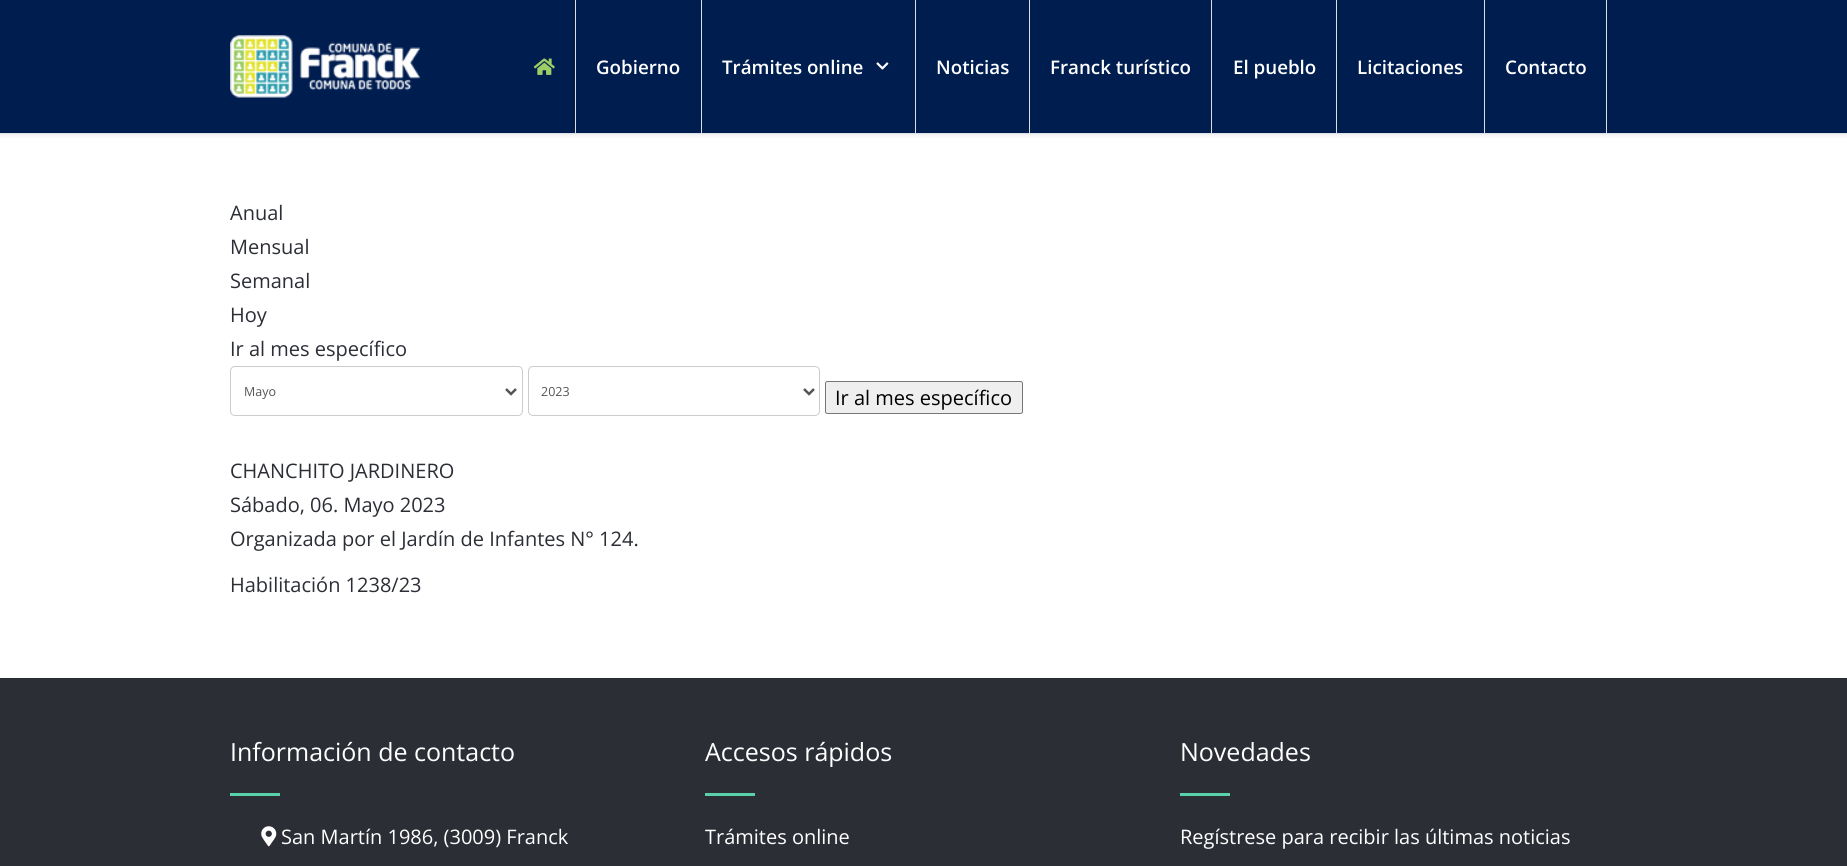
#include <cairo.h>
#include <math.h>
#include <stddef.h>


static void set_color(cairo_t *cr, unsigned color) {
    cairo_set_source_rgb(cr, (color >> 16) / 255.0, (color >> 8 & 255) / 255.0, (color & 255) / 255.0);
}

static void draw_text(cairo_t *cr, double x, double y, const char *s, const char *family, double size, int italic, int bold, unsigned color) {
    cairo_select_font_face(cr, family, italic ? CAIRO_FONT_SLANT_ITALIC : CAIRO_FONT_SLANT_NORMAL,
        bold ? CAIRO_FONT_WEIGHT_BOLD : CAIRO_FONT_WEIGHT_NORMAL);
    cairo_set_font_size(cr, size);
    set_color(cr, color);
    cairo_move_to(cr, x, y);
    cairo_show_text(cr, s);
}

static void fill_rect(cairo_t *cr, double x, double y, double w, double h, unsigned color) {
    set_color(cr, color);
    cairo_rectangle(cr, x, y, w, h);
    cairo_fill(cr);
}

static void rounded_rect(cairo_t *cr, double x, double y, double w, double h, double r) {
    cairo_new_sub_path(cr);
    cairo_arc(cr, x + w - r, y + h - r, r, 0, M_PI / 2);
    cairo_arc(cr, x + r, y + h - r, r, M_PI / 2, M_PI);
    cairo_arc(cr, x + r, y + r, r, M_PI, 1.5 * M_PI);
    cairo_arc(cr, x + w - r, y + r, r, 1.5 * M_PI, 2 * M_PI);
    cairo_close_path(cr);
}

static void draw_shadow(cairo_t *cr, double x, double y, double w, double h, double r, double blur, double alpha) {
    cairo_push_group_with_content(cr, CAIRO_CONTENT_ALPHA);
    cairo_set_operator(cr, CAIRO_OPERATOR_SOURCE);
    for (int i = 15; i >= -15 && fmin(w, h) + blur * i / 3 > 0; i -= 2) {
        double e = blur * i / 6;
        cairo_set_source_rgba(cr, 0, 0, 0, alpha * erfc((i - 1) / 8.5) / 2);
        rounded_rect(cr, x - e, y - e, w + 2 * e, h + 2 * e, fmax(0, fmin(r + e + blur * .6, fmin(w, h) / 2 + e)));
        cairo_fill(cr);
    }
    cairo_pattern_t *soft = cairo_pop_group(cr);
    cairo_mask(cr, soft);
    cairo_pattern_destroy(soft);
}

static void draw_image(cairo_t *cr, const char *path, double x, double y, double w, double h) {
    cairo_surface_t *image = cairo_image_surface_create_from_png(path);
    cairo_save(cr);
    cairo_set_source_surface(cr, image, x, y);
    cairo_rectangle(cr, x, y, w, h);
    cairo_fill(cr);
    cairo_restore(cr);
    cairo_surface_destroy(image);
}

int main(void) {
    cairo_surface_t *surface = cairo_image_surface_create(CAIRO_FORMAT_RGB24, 1847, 866);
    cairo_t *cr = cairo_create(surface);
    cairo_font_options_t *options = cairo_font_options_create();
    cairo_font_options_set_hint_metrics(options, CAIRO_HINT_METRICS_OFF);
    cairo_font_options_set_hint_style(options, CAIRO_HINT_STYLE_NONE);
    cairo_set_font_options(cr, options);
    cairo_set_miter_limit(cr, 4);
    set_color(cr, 0xFFFFFF);
    cairo_paint(cr);
    set_color(cr, 0x000000);
    draw_shadow(cr, 0, 3, 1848, 133, 0, 2.5, 0.07);
    fill_rect(cr, 0, 0, 1847, 133, 0x001D50);
    fill_rect(cr, 0, 133, 1847, 1, 0xDEE2E6);
    draw_image(cr, "assets/img1.png", 230, 35, 190, 63);
    fill_rect(cr, 575, 0, 1, 133, 0xDDDDDD);
    draw_image(cr, "assets/img2.png", 533, 58, 22, 17);
    fill_rect(cr, 701, 0, 1, 133, 0xDDDDDD);
    draw_text(cr, 596, 74, "Gobierno", "Open Sans SemiBold", 18.75, 0, 0, 0xFFFFFF);
    fill_rect(cr, 915, 0, 1, 133, 0xDDDDDD);
    draw_text(cr, 722, 74, "Trámites online", "Open Sans SemiBold", 18.75, 0, 0, 0xFFFFFF);
    draw_image(cr, "assets/img3.png", 876, 62, 13, 8);
    fill_rect(cr, 1029, 0, 1, 133, 0xDDDDDD);
    draw_text(cr, 936, 74, "Noticias", "Open Sans SemiBold", 18.75, 0, 0, 0xFFFFFF);
    fill_rect(cr, 1211, 0, 1, 133, 0xDDDDDD);
    draw_text(cr, 1050, 74, "Franck turístico", "Open Sans SemiBold", 18.75, 0, 0, 0xFFFFFF);
    fill_rect(cr, 1336, 0, 1, 133, 0xDDDDDD);
    draw_text(cr, 1233, 74, "El pueblo", "Open Sans SemiBold", 18.75, 0, 0, 0xFFFFFF);
    fill_rect(cr, 1484, 0, 1, 133, 0xDDDDDD);
    draw_text(cr, 1357, 74, "Licitaciones", "Open Sans SemiBold", 18.75, 0, 0, 0xFFFFFF);
    fill_rect(cr, 1606, 0, 1, 133, 0xDDDDDD);
    draw_text(cr, 1505, 74, "Contacto", "Open Sans SemiBold", 18.75, 0, 0, 0xFFFFFF);
    draw_text(cr, 230, 220, "Anual", "Open Sans", 20, 0, 0, 0x2C2E36);
    draw_text(cr, 230, 254, "Mensual", "Open Sans", 20, 0, 0, 0x2C2E36);
    draw_text(cr, 230, 288, "Semanal", "Open Sans", 20, 0, 0, 0x2C2E36);
    draw_text(cr, 230, 322, "Hoy", "Open Sans", 20, 0, 0, 0x2C2E36);
    draw_text(cr, 230, 356, "Ir al mes específico", "Open Sans", 20, 0, 0, 0x2C2E36);
    rounded_rect(cr, 230.5, 366.5, 292, 49, 4.5);
    set_color(cr, 0xCCCCCC);
    cairo_set_line_width(cr, 1);
    cairo_stroke(cr);
    cairo_new_path(cr);
    cairo_move_to(cr, 506, 389);
    cairo_line_to(cr, 511, 394);
    cairo_line_to(cr, 516, 389);
    set_color(cr, 0x555555);
    cairo_set_line_width(cr, 2.5);
    cairo_stroke(cr);
    draw_text(cr, 244, 396, "Mayo", "Open Sans", 12.5, 0, 0, 0x555555);
    rounded_rect(cr, 528.5, 366.5, 291, 49, 4.5);
    set_color(cr, 0xCCCCCC);
    cairo_set_line_width(cr, 1);
    cairo_stroke(cr);
    cairo_new_path(cr);
    cairo_move_to(cr, 804, 389);
    cairo_line_to(cr, 809, 394);
    cairo_line_to(cr, 814, 389);
    set_color(cr, 0x555555);
    cairo_set_line_width(cr, 2.5);
    cairo_stroke(cr);
    draw_text(cr, 541, 396, "2023", "Open Sans", 12.5, 0, 0, 0x555555);
    set_color(cr, 0xEFEFEF);
    rounded_rect(cr, 825.5, 381.5, 197, 32, 2);
    cairo_fill_preserve(cr);
    set_color(cr, 0x767676);
    cairo_set_line_width(cr, 1);
    cairo_stroke(cr);
    draw_text(cr, 835, 405, "Ir al mes específico", "Open Sans", 20, 0, 0, 0x000000);
    draw_text(cr, 230, 478, "CHANCHITO JARDINERO", "Open Sans", 20, 0, 0, 0x2C2E36);
    draw_text(cr, 230, 512, "Sábado, 06. Mayo 2023", "Open Sans", 20, 0, 0, 0x2C2E36);
    draw_text(cr, 230, 546, "Organizada por el Jardín de Infantes N° 124.", "Open Sans", 20, 0, 0, 0x2C2E36);
    draw_text(cr, 230, 592, "Habilitación 1238/23", "Open Sans", 20, 0, 0, 0x2C2E36);
    fill_rect(cr, 0, 678, 1847, 188, 0x2C2E36);
    draw_text(cr, 230, 761, "Información de contacto", "Open Sans", 25, 0, 0, 0xFFFFFF);
    fill_rect(cr, 230, 793, 50, 3, 0x5AD2A9);
    draw_image(cr, "assets/img4.png", 261, 826, 16, 21);
    draw_text(cr, 281, 844, "San Martín 1986, (3009) Franck", "Open Sans", 20, 0, 0, 0xFFFFFF);
    draw_text(cr, 705, 761, "Accesos rápidos", "Open Sans", 25, 0, 0, 0xFFFFFF);
    fill_rect(cr, 705, 793, 50, 3, 0x5AD2A9);
    draw_text(cr, 705, 844, "Trámites online", "Open Sans", 20, 0, 0, 0xFFFFFF);
    draw_text(cr, 1180, 761, "Novedades", "Open Sans", 25, 0, 0, 0xFFFFFF);
    fill_rect(cr, 1180, 793, 50, 3, 0x5AD2A9);
    draw_text(cr, 1180, 844, "Regístrese para recibir las últimas noticias", "Open Sans", 20, 0, 0, 0xFFFFFF);
    cairo_surface_write_to_png(surface, "output.png");
    cairo_font_options_destroy(options);
    cairo_destroy(cr);
    cairo_surface_destroy(surface);
    return 0;
}
